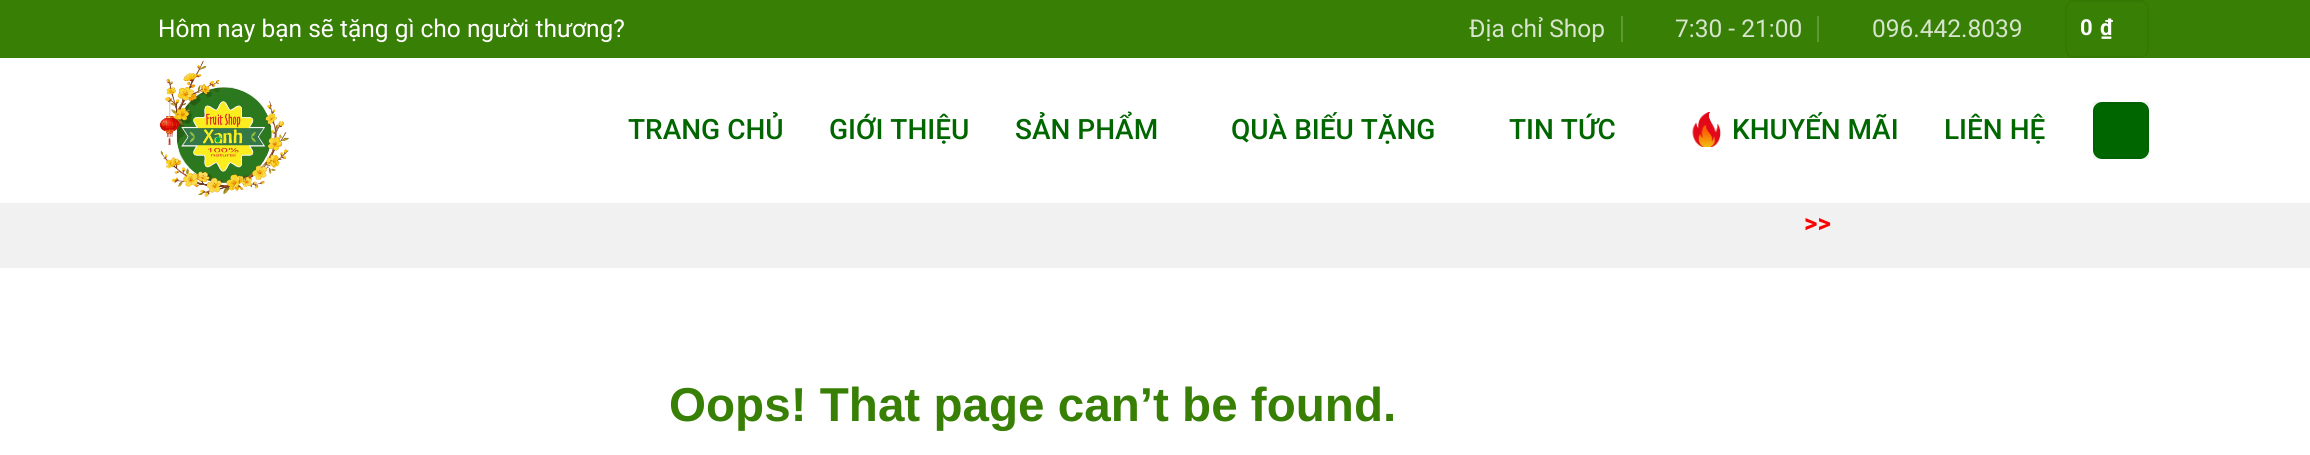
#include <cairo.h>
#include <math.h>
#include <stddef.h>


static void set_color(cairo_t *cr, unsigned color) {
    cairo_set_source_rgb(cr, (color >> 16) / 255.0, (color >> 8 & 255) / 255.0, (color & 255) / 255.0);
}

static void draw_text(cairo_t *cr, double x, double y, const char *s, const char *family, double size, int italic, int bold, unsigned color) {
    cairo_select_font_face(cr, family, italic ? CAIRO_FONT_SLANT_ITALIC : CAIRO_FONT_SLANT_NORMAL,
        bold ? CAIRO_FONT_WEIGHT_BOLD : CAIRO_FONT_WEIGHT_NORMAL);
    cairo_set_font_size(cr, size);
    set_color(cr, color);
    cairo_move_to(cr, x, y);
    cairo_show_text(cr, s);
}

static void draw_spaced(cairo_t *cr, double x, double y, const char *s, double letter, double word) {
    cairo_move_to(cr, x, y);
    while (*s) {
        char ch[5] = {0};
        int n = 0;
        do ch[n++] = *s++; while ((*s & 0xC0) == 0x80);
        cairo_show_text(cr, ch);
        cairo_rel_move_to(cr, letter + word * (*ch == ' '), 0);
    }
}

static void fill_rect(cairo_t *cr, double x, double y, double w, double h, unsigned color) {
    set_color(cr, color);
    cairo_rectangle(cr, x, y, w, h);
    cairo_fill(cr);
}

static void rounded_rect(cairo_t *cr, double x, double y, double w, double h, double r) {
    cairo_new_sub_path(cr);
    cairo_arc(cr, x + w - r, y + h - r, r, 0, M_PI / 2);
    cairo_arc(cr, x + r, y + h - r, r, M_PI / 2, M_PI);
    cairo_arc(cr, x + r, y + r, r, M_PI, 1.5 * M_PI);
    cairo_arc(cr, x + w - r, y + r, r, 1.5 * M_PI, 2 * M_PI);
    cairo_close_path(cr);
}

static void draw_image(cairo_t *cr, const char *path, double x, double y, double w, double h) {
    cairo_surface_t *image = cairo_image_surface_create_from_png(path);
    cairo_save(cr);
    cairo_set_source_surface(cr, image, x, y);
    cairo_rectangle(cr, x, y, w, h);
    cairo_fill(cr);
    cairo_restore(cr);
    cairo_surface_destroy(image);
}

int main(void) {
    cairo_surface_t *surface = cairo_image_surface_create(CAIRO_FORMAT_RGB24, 2310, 455);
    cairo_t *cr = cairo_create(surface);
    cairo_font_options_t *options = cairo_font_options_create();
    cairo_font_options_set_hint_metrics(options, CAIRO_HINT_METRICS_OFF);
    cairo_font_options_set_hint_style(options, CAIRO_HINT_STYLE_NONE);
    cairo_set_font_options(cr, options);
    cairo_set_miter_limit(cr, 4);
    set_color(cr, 0xFFFFFF);
    cairo_paint(cr);
    fill_rect(cr, 0, 0, 2310, 58, 0x387F05);
    draw_text(cr, 158, 37, "Hôm nay bạn sẽ tặng gì cho người thương?", "Roboto", 24.5, 0, 0, 0xFFFFFF);
    draw_text(cr, 1469, 37, "Địa chỉ Shop", "Roboto", 24.5, 0, 0, 0xD7E5CD);
    fill_rect(cr, 1621, 16, 2, 26, 0x609937);
    draw_text(cr, 1675, 37, "7:30 - 21:00", "Roboto", 24.5, 0, 0, 0xD7E5CD);
    fill_rect(cr, 1817, 16, 2, 26, 0x609937);
    draw_text(cr, 1872, 37, "096.442.8039", "Roboto", 24.5, 0, 0, 0xD7E5CD);
    rounded_rect(cr, 2066, 1, 82, 56, 8);
    set_color(cr, 0x357905);
    cairo_stroke(cr);
    cairo_select_font_face(cr, "Roboto", CAIRO_FONT_SLANT_NORMAL, CAIRO_FONT_WEIGHT_BOLD);
    cairo_set_font_size(cr, 22);
    set_color(cr, 0xFFFFFF);
    draw_spaced(cr, 2080, 35, "0 ₫", 1, 0);
    draw_image(cr, "assets/img1.png", 159, 60, 130, 137);
    draw_text(cr, 628, 139, "TRANG CHỦ", "Roboto Medium", 28, 0, 0, 0x006600);
    draw_text(cr, 829, 139, "GIỚI THIỆU", "Roboto Medium", 28, 0, 0, 0x006600);
    draw_text(cr, 1015, 139, "SẢN PHẨM", "Roboto Medium", 28, 0, 0, 0x006600);
    draw_text(cr, 1231, 139, "QUÀ BIẾU TẶNG", "Roboto Medium", 28, 0, 0, 0x006600);
    draw_text(cr, 1509, 139, "TIN TỨC", "Roboto Medium", 28, 0, 0, 0x006600);
    draw_image(cr, "assets/img2.png", 1692, 112, 29, 35);
    draw_text(cr, 1732, 139, "KHUYẾN MÃI", "Roboto Medium", 28, 0, 0, 0x006600);
    draw_text(cr, 1944, 139, "LIÊN HỆ", "Roboto Medium", 28, 0, 0, 0x006600);
    rounded_rect(cr, 2093, 102, 56, 57, 9);
    cairo_fill(cr);
    cairo_rectangle(cr, 2094, 103, 54, 55);
    cairo_set_source_rgba(cr, 0, 0, 0, 0.05);
    cairo_stroke(cr);
    fill_rect(cr, 0, 203, 2310, 65, 0xF1F1F1);
    draw_text(cr, 1804, 232, ">>", "Roboto", 26, 0, 1, 0xFF0000);
    draw_text(cr, 669, 421, "Oops! That page can’t be found.", "Liberation Sans", 47.6, 0, 1, 0x387F05);
    cairo_surface_write_to_png(surface, "output.png");
    cairo_font_options_destroy(options);
    cairo_destroy(cr);
    cairo_surface_destroy(surface);
    return 0;
}
